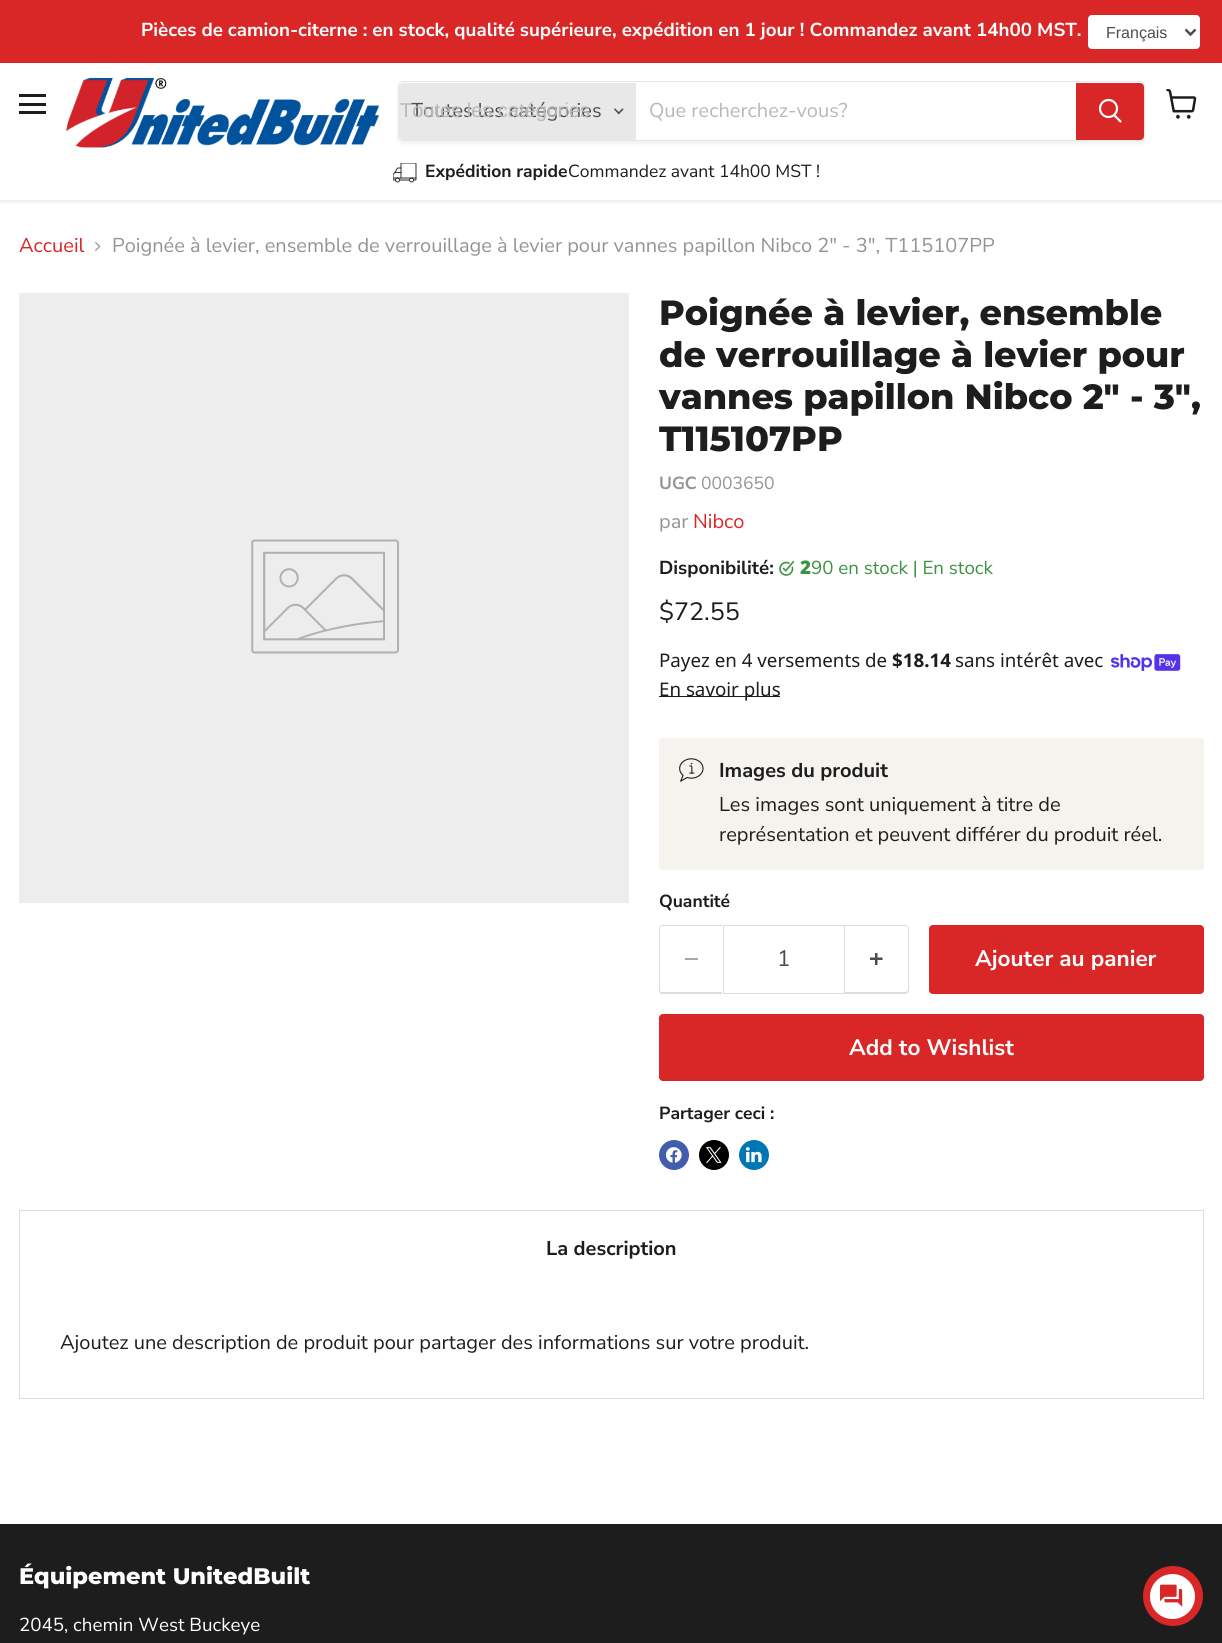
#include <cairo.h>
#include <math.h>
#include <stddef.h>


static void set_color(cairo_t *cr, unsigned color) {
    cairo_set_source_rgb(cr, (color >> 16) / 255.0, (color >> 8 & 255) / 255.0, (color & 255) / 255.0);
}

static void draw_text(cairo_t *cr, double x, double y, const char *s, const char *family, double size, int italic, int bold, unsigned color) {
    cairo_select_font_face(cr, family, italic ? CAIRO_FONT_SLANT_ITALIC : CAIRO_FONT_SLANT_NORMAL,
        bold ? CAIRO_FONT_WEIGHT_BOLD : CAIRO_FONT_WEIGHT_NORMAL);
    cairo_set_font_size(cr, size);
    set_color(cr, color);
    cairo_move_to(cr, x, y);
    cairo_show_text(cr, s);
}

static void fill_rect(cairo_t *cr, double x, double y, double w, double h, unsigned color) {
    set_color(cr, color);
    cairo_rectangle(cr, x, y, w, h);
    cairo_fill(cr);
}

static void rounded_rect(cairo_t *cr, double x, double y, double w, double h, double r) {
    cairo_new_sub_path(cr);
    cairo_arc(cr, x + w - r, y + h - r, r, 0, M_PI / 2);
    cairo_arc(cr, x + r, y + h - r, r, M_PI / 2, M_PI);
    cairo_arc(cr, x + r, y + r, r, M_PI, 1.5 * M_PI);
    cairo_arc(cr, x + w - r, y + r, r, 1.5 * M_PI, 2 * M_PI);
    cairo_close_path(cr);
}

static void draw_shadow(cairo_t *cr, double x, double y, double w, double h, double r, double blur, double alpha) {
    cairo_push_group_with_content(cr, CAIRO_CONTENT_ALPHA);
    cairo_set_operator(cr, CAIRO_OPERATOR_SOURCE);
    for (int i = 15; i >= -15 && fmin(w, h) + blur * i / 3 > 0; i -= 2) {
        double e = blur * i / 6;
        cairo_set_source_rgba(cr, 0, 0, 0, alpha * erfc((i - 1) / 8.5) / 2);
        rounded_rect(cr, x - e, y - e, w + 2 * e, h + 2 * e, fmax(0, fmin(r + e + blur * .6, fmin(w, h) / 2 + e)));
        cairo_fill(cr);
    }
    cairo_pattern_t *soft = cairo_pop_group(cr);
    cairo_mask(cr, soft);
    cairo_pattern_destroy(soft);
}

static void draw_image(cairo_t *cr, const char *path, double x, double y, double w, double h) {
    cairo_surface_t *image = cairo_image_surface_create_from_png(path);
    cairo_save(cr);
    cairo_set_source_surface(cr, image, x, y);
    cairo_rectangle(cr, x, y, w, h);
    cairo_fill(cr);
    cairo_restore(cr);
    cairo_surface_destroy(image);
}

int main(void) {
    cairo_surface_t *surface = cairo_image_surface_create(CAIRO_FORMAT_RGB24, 1222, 1643);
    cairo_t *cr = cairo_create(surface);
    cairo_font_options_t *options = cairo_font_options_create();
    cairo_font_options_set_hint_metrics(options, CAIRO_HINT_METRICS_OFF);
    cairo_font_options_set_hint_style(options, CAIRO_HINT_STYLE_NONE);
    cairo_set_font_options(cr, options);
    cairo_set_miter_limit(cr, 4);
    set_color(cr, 0xFFFFFF);
    cairo_paint(cr);
    cairo_save(cr);
    cairo_rectangle(cr, 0, 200, 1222, 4);
    cairo_clip(cr);
    set_color(cr, 0x808080);
    draw_shadow(cr, 0, 64, 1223, 137, 0, 2.5, 0.25);
    cairo_restore(cr);
    fill_rect(cr, 0, 0, 1222, 63, 0xD92626);
    draw_text(cr, 141, 36, "Pièces de camion-citerne : en stock, qualité supérieure, expédition en 1 jour ! Commandez avant 14h00 MST.", "Nunito Sans", 18.75, 0, 1, 0xFFFFFF);
    rounded_rect(cr, 1088, 15, 112, 34, 4);
    cairo_fill(cr);
    cairo_new_path(cr);
    cairo_move_to(cr, 1185.5, 29.5);
    cairo_line_to(cr, 1190.5, 34.5);
    cairo_line_to(cr, 1195.5, 29.5);
    set_color(cr, 0x4D4D4D);
    cairo_set_line_width(cr, 2.5);
    cairo_stroke(cr);
    draw_text(cr, 1106, 38, "Français", "Liberation Sans", 16, 0, 0, 0x4D4D4D);
    fill_rect(cr, 19, 94, 27, 3, 0x1D1D1D);
    fill_rect(cr, 19, 103, 27, 3, 0x1D1D1D);
    fill_rect(cr, 19, 111, 27, 3, 0x1D1D1D);
    draw_image(cr, "assets/img1.png", 66, 77, 313, 71);
    cairo_save(cr);
    cairo_set_fill_rule(cr, CAIRO_FILL_RULE_EVEN_ODD);
    cairo_new_path(cr);
    cairo_move_to(cr, 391, 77);
    cairo_line_to(cr, 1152, 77);
    cairo_line_to(cr, 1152, 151);
    cairo_line_to(cr, 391, 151);
    cairo_close_path(cr);
    cairo_move_to(cr, 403, 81);
    cairo_line_to(cr, 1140, 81);
    cairo_curve_to(cr, 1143, 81, 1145, 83, 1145, 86);
    cairo_line_to(cr, 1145, 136);
    cairo_curve_to(cr, 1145, 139, 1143, 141, 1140, 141);
    cairo_line_to(cr, 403, 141);
    cairo_curve_to(cr, 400, 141, 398, 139, 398, 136);
    cairo_line_to(cr, 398, 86);
    cairo_curve_to(cr, 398, 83, 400, 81, 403, 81);
    cairo_close_path(cr);
    cairo_clip(cr);
    set_color(cr, 0x808080);
    draw_shadow(cr, 398, 84, 747, 60, 5, 2, 0.11);
    cairo_restore(cr);
    rounded_rect(cr, 398.5, 81.5, 746, 59, 4.5);
    cairo_set_source_rgba(cr, 0.502, 0.502, 0.502, 0.2);
    cairo_set_line_width(cr, 1);
    cairo_stroke(cr);
    set_color(cr, 0xE8E8E8);
    cairo_new_path(cr);
    cairo_move_to(cr, 403, 83);
    cairo_line_to(cr, 636, 83);
    cairo_line_to(cr, 636, 140);
    cairo_line_to(cr, 403, 140);
    cairo_curve_to(cr, 401, 140, 399, 138, 399, 136);
    cairo_line_to(cr, 399, 87);
    cairo_curve_to(cr, 399, 85, 401, 83, 403, 83);
    cairo_close_path(cr);
    cairo_fill(cr);
    draw_text(cr, 411, 117, "Toutes les catégories", "Nunito Sans ExtraLight", 20, 0, 0, 0x4D4D4D);
    draw_text(cr, 400, 117, "Toutes les catégories", "Liberation Sans", 20, 0, 0, 0xB8B8B8);
    draw_image(cr, "assets/img2.png", 614, 108, 10, 7);
    draw_text(cr, 649, 117, "Que recherchez-vous?", "Nunito Sans ExtraLight", 20, 0, 0, 0xB8B8B8);
    set_color(cr, 0xD92626);
    cairo_new_path(cr);
    cairo_move_to(cr, 1076.5, 83.5);
    cairo_line_to(cr, 1140, 83.5);
    cairo_curve_to(cr, 1142, 83.5, 1143.5, 85, 1143.5, 87);
    cairo_line_to(cr, 1143.5, 136);
    cairo_curve_to(cr, 1143.5, 138, 1142, 139.5, 1140, 139.5);
    cairo_line_to(cr, 1076.5, 139.5);
    cairo_close_path(cr);
    cairo_fill_preserve(cr);
    cairo_stroke(cr);
    cairo_new_path(cr);
    cairo_move_to(cr, 1120.5, 121.5);
    cairo_line_to(cr, 1114.5, 115.5);
    set_color(cr, 0xFFFFFF);
    cairo_set_line_width(cr, 2.2);
    cairo_set_line_cap(cr, CAIRO_LINE_CAP_ROUND);
    cairo_stroke(cr);
    cairo_arc(cr, 1108.5, 108.5, 8.5, 0, 2 * M_PI);
    cairo_set_line_cap(cr, CAIRO_LINE_CAP_BUTT);
    cairo_stroke(cr);
    draw_image(cr, "assets/img3.png", 393, 163, 24, 20);
    draw_text(cr, 425, 177, "Expédition rapide", "Nunito Sans", 17.5, 0, 1, 0x1D1D1D);
    draw_text(cr, 568, 177, "Commandez avant 14h00 MST !", "Nunito Sans ExtraLight", 17.5, 0, 0, 0x1D1D1D);
    draw_image(cr, "assets/img4.png", 1166, 89, 31, 30);
    draw_text(cr, 19, 252, "Accueil", "Nunito Sans ExtraLight", 20, 0, 0, 0xD92626);
    draw_image(cr, "assets/img5.png", 95, 242, 6, 9);
    draw_text(cr, 112, 252, "Poignée à levier, ensemble de verrouillage à levier pour vannes papillon Nibco 2\" - 3\", T115107PP", "Nunito Sans ExtraLight", 20, 0, 0, 0x949494);
    fill_rect(cr, 19, 293, 610, 610, 0xEDEDED);
    draw_image(cr, "assets/img6.png", 251, 539, 148, 115);
    draw_text(cr, 659, 325, "Poignée à levier, ensemble", "Montserrat ExtraBold", 35, 0, 0, 0x1D1D1D);
    draw_text(cr, 659, 367, "de verrouillage à levier pour", "Montserrat ExtraBold", 35, 0, 0, 0x1D1D1D);
    draw_text(cr, 659, 409, "vannes papillon Nibco 2\" - 3\",", "Montserrat ExtraBold", 35, 0, 0, 0x1D1D1D);
    draw_text(cr, 659, 451, "T115107PP", "Montserrat ExtraBold", 35, 0, 0, 0x1D1D1D);
    draw_text(cr, 659, 489, "UGC", "Nunito Sans", 17.5, 0, 1, 0x949494);
    draw_text(cr, 701, 489, "0003650", "Nunito Sans ExtraLight", 17.5, 0, 0, 0x949494);
    draw_text(cr, 659, 528, "par", "Nunito Sans ExtraLight", 20, 0, 0, 0x949494);
    draw_text(cr, 693, 528, "Nibco", "Nunito Sans ExtraLight", 20, 0, 0, 0xD92626);
    draw_text(cr, 659, 574, "Disponibilité:", "Nunito Sans", 18.75, 0, 1, 0x1D1D1D);
    draw_image(cr, "assets/img7.png", 779, 560, 16, 16);
    draw_text(cr, 800, 574, "2", "Noto Sans Black", 18.75, 0, 0, 0x3C9342);
    draw_text(cr, 811, 574, "90 en stock | En stock", "Nunito Sans ExtraLight", 18.75, 0, 0, 0x3C9342);
    draw_text(cr, 659, 620, "$72.55", "Nunito Sans ExtraLight", 25, 0, 0, 0x1D1D1D);
    draw_text(cr, 659, 667, "Payez en 4 versements de", "Noto Sans", 18.75, 0, 0, 0x1D1D1D);
    draw_text(cr, 892, 667, "$18.14", "Noto Sans", 18.75, 0, 1, 0x1D1D1D);
    draw_text(cr, 955, 667, "sans intérêt avec", "Noto Sans", 18.75, 0, 0, 0x1D1D1D);
    draw_image(cr, "assets/img8.png", 1111, 654, 70, 17);
    fill_rect(cr, 659, 696, 121, 1, 0x1D1D1D);
    draw_text(cr, 659, 696, "En savoir plus", "Noto Sans", 18.75, 0, 0, 0x1D1D1D);
    set_color(cr, 0xF5F3ED);
    rounded_rect(cr, 659, 738, 545, 132, 4);
    cairo_fill(cr);
    draw_image(cr, "assets/img9.png", 679, 758, 25, 24);
    draw_text(cr, 719, 777, "Images du produit", "Nunito Sans", 20, 0, 1, 0x1D1D1D);
    draw_text(cr, 719, 811, "Les images sont uniquement à titre de", "Nunito Sans ExtraLight", 20, 0, 0, 0x1D1D1D);
    draw_text(cr, 719, 841, "représentation et peuvent différer du produit réel.", "Nunito Sans ExtraLight", 20, 0, 0, 0x1D1D1D);
    draw_text(cr, 659, 907, "Quantité", "Nunito Sans", 17.5, 0, 1, 0x1D1D1D);
    set_color(cr, 0xDDDDDD);
    cairo_set_fill_rule(cr, CAIRO_FILL_RULE_EVEN_ODD);
    cairo_new_path(cr);
    cairo_move_to(cr, 662, 925);
    cairo_line_to(cr, 722, 925);
    cairo_line_to(cr, 722, 994);
    cairo_line_to(cr, 662, 994);
    cairo_curve_to(cr, 660, 994, 659, 992, 659, 990);
    cairo_line_to(cr, 659, 929);
    cairo_curve_to(cr, 659, 927, 660, 925, 662, 925);
    cairo_close_path(cr);
    cairo_move_to(cr, 662, 926);
    cairo_line_to(cr, 722, 926);
    cairo_line_to(cr, 722, 992);
    cairo_line_to(cr, 662, 992);
    cairo_curve_to(cr, 661, 992, 660, 991, 660, 990);
    cairo_line_to(cr, 660, 929);
    cairo_curve_to(cr, 660, 927, 661, 926, 662, 926);
    cairo_close_path(cr);
    cairo_fill(cr);
    fill_rect(cr, 685, 958, 13, 2, 0xA6A6A6);
    cairo_rectangle(cr, 723.5, 925.5, 121, 68);
    set_color(cr, 0xDDDDDD);
    cairo_set_line_width(cr, 1);
    cairo_stroke(cr);
    draw_text(cr, 777, 966, "1", "Nunito Sans ExtraLight", 22.5, 0, 0, 0x4D4D4D);
    set_color(cr, 0xDDDDDD);
    cairo_new_path(cr);
    cairo_move_to(cr, 845, 925);
    cairo_line_to(cr, 905, 925);
    cairo_curve_to(cr, 907, 925, 909, 927, 909, 929);
    cairo_line_to(cr, 909, 990);
    cairo_curve_to(cr, 909, 992, 907, 994, 905, 994);
    cairo_line_to(cr, 845, 994);
    cairo_close_path(cr);
    cairo_move_to(cr, 845, 926);
    cairo_line_to(cr, 905, 926);
    cairo_curve_to(cr, 906, 926, 908, 927, 908, 929);
    cairo_line_to(cr, 908, 990);
    cairo_curve_to(cr, 908, 991, 906, 992, 905, 992);
    cairo_line_to(cr, 845, 992);
    cairo_close_path(cr);
    cairo_fill(cr);
    draw_image(cr, "assets/img10.png", 870, 953, 13, 12);
    set_color(cr, 0xD92626);
    rounded_rect(cr, 929.5, 925.5, 274, 68, 3.5);
    cairo_fill_preserve(cr);
    cairo_stroke(cr);
    draw_text(cr, 975, 966, "Ajouter au panier", "Nunito Sans", 22.5, 0, 1, 0xFFFFFF);
    set_color(cr, 0xD92626);
    rounded_rect(cr, 659.5, 1014.5, 544, 66, 3.5);
    cairo_fill_preserve(cr);
    cairo_stroke(cr);
    draw_text(cr, 849, 1055, "Add to Wishlist", "Nunito Sans", 22.5, 0, 1, 0xFFFFFF);
    draw_text(cr, 659, 1119, "Partager ceci :", "Nunito Sans", 17.5, 0, 1, 0x1D1D1D);
    set_color(cr, 0x425DAB);
    cairo_new_path(cr);
    cairo_arc(cr, 674, 1155, 15, 0, 2 * M_PI);
    cairo_fill(cr);
    draw_image(cr, "assets/img11.png", 665, 1147, 17, 16);
    set_color(cr, 0x000000);
    cairo_arc(cr, 714, 1155, 15, 0, 2 * M_PI);
    cairo_fill(cr);
    draw_image(cr, "assets/img12.png", 706, 1147, 16, 16);
    set_color(cr, 0x0077B5);
    cairo_arc(cr, 754, 1155, 15, 0, 2 * M_PI);
    cairo_fill(cr);
    draw_image(cr, "assets/img13.png", 745, 1147, 17, 16);
    fill_rect(cr, 19, 1210, 1185, 1, 0xDDDDDD);
    fill_rect(cr, 1203, 1210, 1, 189, 0xDDDDDD);
    fill_rect(cr, 19, 1210, 1, 78, 0xDDDDDD);
    draw_text(cr, 546, 1255, "La description", "Nunito Sans", 20, 0, 1, 0x1D1D1D);
    fill_rect(cr, 19, 1398, 1185, 1, 0xDDDDDD);
    fill_rect(cr, 19, 1288, 1, 111, 0xDDDDDD);
    draw_text(cr, 60, 1349, "Ajoutez une description de produit pour partager des informations sur votre produit.", "Nunito Sans ExtraLight", 20, 0, 0, 0x1D1D1D);
    fill_rect(cr, 0, 1524, 1222, 119, 0x1D1D1D);
    draw_text(cr, 19, 1584, "Équipement UnitedBuilt", "Montserrat ExtraBold", 22.5, 0, 0, 0xFFFFFF);
    draw_text(cr, 19, 1631, "2045, chemin West Buckeye", "Nunito Sans ExtraLight", 18.75, 0, 0, 0xFFFFFF);
    set_color(cr, 0xD92626);
    cairo_new_path(cr);
    cairo_arc(cr, 1173, 1596, 30, 0, 2 * M_PI);
    cairo_fill(cr);
    set_color(cr, 0xFFFFFF);
    cairo_arc(cr, 1172.5, 1596.5, 22.5, 0, 2 * M_PI);
    cairo_fill(cr);
    draw_image(cr, "assets/img14.png", 1160, 1584, 23, 23);
    cairo_surface_write_to_png(surface, "output.png");
    cairo_font_options_destroy(options);
    cairo_destroy(cr);
    cairo_surface_destroy(surface);
    return 0;
}
